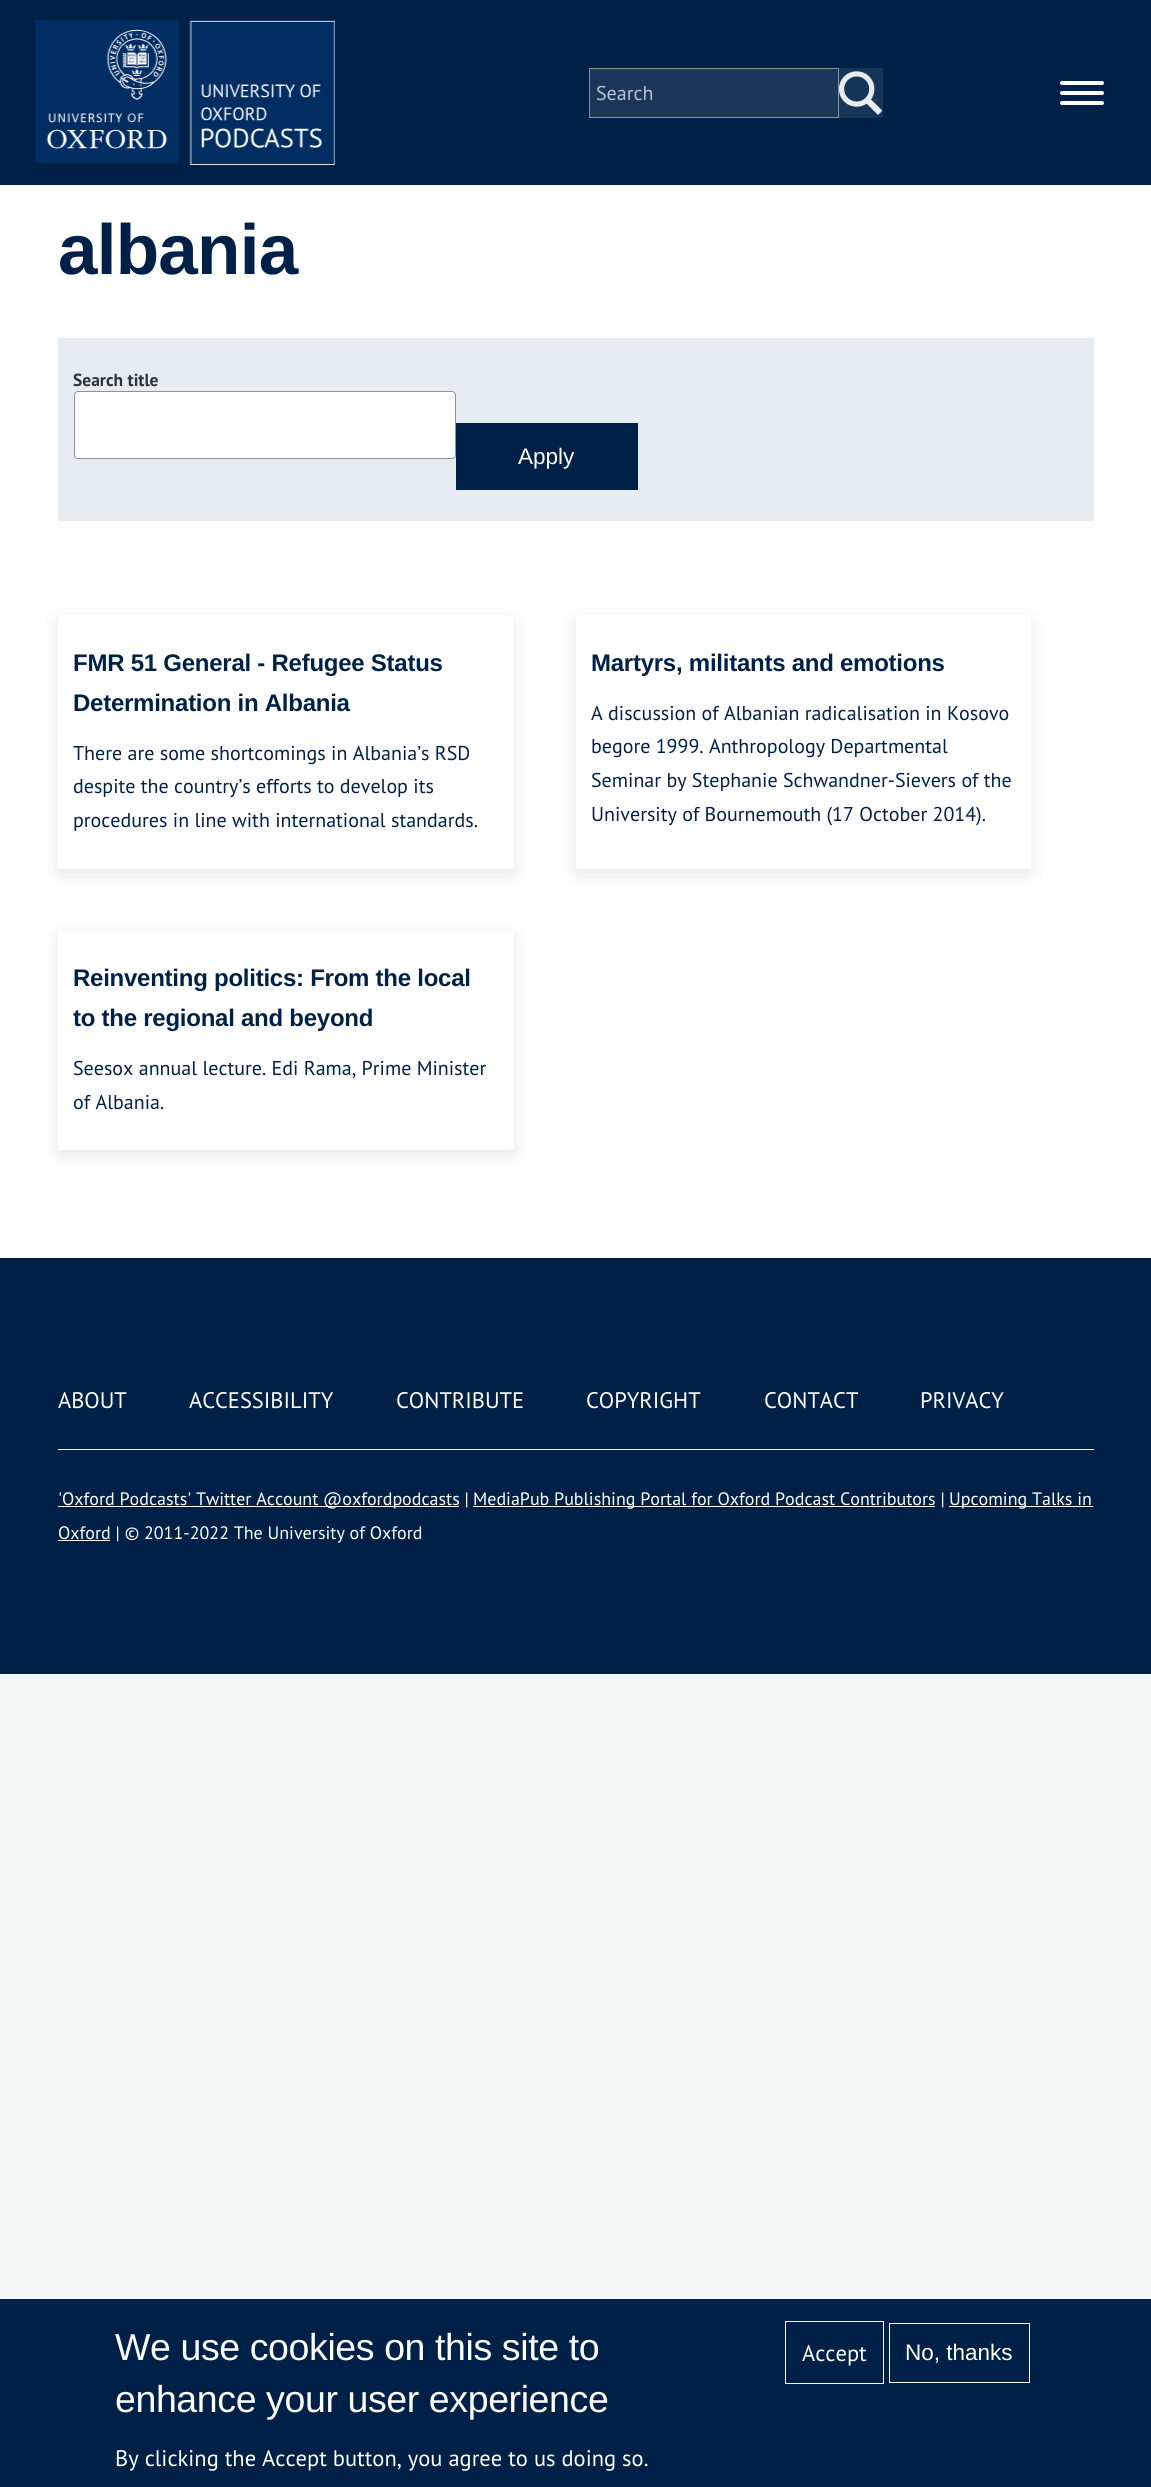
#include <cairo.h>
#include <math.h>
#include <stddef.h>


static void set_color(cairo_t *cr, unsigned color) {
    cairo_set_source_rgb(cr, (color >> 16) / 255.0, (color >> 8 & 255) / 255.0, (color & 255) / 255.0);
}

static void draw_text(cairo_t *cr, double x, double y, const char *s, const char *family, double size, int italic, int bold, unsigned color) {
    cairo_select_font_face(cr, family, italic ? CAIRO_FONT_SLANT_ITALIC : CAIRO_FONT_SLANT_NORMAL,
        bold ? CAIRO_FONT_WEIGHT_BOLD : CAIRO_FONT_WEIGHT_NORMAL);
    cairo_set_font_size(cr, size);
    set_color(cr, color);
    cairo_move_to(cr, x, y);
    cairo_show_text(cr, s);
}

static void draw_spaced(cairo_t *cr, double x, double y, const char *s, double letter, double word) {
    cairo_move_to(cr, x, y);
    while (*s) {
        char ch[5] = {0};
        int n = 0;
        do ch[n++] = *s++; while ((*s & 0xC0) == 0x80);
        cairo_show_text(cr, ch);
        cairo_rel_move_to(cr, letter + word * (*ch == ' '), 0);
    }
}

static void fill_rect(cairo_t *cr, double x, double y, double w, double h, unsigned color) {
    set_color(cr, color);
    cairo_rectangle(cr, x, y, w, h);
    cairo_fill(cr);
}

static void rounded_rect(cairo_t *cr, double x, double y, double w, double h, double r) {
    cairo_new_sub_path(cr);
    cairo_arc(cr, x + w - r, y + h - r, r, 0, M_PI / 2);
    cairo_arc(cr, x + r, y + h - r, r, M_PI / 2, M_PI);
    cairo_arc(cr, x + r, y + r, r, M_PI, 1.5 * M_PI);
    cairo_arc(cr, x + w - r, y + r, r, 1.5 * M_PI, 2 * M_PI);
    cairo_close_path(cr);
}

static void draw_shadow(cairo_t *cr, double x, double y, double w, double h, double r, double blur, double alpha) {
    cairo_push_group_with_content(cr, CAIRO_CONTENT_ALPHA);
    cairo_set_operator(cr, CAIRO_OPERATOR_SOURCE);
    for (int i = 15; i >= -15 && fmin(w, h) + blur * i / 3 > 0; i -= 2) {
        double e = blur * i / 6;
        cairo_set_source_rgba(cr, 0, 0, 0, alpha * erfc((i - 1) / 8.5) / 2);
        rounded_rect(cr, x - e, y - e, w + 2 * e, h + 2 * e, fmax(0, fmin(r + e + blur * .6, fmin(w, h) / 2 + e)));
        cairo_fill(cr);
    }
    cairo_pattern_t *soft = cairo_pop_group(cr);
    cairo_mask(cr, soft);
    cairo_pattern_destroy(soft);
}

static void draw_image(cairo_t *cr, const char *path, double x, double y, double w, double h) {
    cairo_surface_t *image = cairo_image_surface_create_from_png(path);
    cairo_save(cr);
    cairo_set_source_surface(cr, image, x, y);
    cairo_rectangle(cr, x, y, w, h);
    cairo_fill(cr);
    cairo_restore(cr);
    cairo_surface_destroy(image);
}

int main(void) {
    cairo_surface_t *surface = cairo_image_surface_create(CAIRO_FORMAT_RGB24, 1151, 2487);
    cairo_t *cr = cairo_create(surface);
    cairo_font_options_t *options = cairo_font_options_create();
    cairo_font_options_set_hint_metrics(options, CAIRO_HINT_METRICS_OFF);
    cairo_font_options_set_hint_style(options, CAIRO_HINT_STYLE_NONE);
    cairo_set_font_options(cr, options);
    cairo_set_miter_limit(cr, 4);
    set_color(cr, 0xF6F8F8);
    cairo_paint(cr);
    fill_rect(cr, 0, 185, 1151, 1073, 0xFFFFFF);
    fill_rect(cr, 0, 0, 1151, 185, 0x002147);
    draw_image(cr, "assets/img1.png", 35, 20, 300, 145);
    set_color(cr, 0x1A3759);
    cairo_rectangle(cr, 589.5, 68.5, 249, 49);
    cairo_fill_preserve(cr);
    set_color(cr, 0x8196A2);
    cairo_set_line_width(cr, 1);
    cairo_stroke(cr);
    draw_text(cr, 596, 100, "Search", "PT Sans", 20, 0, 0, 0xBAC3CD);
    fill_rect(cr, 839, 68, 44, 50, 0x173558);
    draw_image(cr, "assets/img2.png", 839, 71, 44, 44);
    set_color(cr, 0xFFFFFF);
    rounded_rect(cr, 1060, 91, 44, 4, 2);
    cairo_fill(cr);
    rounded_rect(cr, 1060, 81, 44, 4, 2);
    cairo_fill(cr);
    rounded_rect(cr, 1060, 101, 44, 4, 2);
    cairo_fill(cr);
    cairo_select_font_face(cr, "Liberation Sans", CAIRO_FONT_SLANT_NORMAL, CAIRO_FONT_WEIGHT_BOLD);
    cairo_set_font_size(cr, 71);
    set_color(cr, 0x002147);
    draw_spaced(cr, 58, 274, "albania", -0.75, 0);
    fill_rect(cr, 58, 338, 1036, 183, 0xE7ECF3);
    draw_text(cr, 73, 386, "Search title", "PT Sans", 17.5, 0, 1, 0x2B353B);
    set_color(cr, 0xFFFFFF);
    rounded_rect(cr, 74.5, 391.5, 381, 67, 3.5);
    cairo_fill_preserve(cr);
    set_color(cr, 0x8196A2);
    cairo_stroke(cr);
    fill_rect(cr, 456, 423, 182, 67, 0x002147);
    draw_text(cr, 518, 464, "Apply", "Liberation Sans", 22.5, 0, 0, 0xFFFFFF);
    cairo_save(cr);
    cairo_set_fill_rule(cr, CAIRO_FILL_RULE_EVEN_ODD);
    cairo_new_path(cr);
    cairo_move_to(cr, 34, 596);
    cairo_line_to(cr, 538, 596);
    cairo_line_to(cr, 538, 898);
    cairo_line_to(cr, 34, 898);
    cairo_close_path(cr);
    cairo_move_to(cr, 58, 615);
    cairo_line_to(cr, 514, 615);
    cairo_line_to(cr, 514, 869);
    cairo_line_to(cr, 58, 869);
    cairo_close_path(cr);
    cairo_clip(cr);
    set_color(cr, 0x000000);
    draw_shadow(cr, 58, 620, 456, 254, 0, 7.5, 0.1);
    cairo_restore(cr);
    cairo_select_font_face(cr, "Liberation Sans", CAIRO_FONT_SLANT_NORMAL, CAIRO_FONT_WEIGHT_BOLD);
    cairo_set_font_size(cr, 24);
    set_color(cr, 0x002147);
    draw_spaced(cr, 73, 671, "FMR 51 General - Refugee Status", -0.25, 0);
    draw_spaced(cr, 73, 711, "Determination in Albania", -0.25, 0);
    draw_text(cr, 73, 760, "There are some shortcomings in Albania’s RSD", "PT Sans", 20, 0, 0, 0x002147);
    draw_text(cr, 73, 793, "despite the country’s efforts to develop its", "PT Sans", 20, 0, 0, 0x002147);
    draw_text(cr, 73, 827, "procedures in line with international standards.", "PT Sans", 20, 0, 0, 0x002147);
    cairo_save(cr);
    cairo_set_fill_rule(cr, CAIRO_FILL_RULE_EVEN_ODD);
    cairo_new_path(cr);
    cairo_move_to(cr, 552, 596);
    cairo_line_to(cr, 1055, 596);
    cairo_line_to(cr, 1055, 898);
    cairo_line_to(cr, 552, 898);
    cairo_close_path(cr);
    cairo_move_to(cr, 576, 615);
    cairo_line_to(cr, 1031, 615);
    cairo_line_to(cr, 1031, 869);
    cairo_line_to(cr, 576, 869);
    cairo_close_path(cr);
    cairo_clip(cr);
    set_color(cr, 0x000000);
    draw_shadow(cr, 576, 620, 455, 254, 0, 7.5, 0.1);
    cairo_restore(cr);
    cairo_select_font_face(cr, "Liberation Sans", CAIRO_FONT_SLANT_NORMAL, CAIRO_FONT_WEIGHT_BOLD);
    cairo_set_font_size(cr, 24);
    draw_spaced(cr, 591, 671, "Martyrs, militants and emotions", -0.25, 0);
    draw_text(cr, 591, 720, "A discussion of Albanian radicalisation in Kosovo", "PT Sans", 20, 0, 0, 0x002147);
    draw_text(cr, 591, 753, "begore 1999. Anthropology Departmental", "PT Sans", 20, 0, 0, 0x002147);
    draw_text(cr, 591, 787, "Seminar by Stephanie Schwandner-Sievers of the", "PT Sans", 20, 0, 0, 0x002147);
    draw_text(cr, 591, 821, "University of Bournemouth (17 October 2014).", "PT Sans", 20, 0, 0, 0x002147);
    cairo_save(cr);
    cairo_set_fill_rule(cr, CAIRO_FILL_RULE_EVEN_ODD);
    cairo_new_path(cr);
    cairo_move_to(cr, 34, 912);
    cairo_line_to(cr, 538, 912);
    cairo_line_to(cr, 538, 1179);
    cairo_line_to(cr, 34, 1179);
    cairo_close_path(cr);
    cairo_move_to(cr, 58, 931);
    cairo_line_to(cr, 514, 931);
    cairo_line_to(cr, 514, 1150);
    cairo_line_to(cr, 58, 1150);
    cairo_close_path(cr);
    cairo_clip(cr);
    set_color(cr, 0x000000);
    draw_shadow(cr, 58, 936, 456, 219, 0, 7.5, 0.1);
    cairo_restore(cr);
    cairo_select_font_face(cr, "Liberation Sans", CAIRO_FONT_SLANT_NORMAL, CAIRO_FONT_WEIGHT_BOLD);
    cairo_set_font_size(cr, 24);
    draw_spaced(cr, 73, 986, "Reinventing politics: From the local", -0.25, 0);
    draw_spaced(cr, 73, 1026, "to the regional and beyond", -0.25, 0);
    draw_text(cr, 73, 1075, "Seesox annual lecture. Edi Rama, Prime Minister", "PT Sans", 20, 0, 0, 0x002147);
    draw_text(cr, 73, 1109, "of Albania.", "PT Sans", 20, 0, 0, 0x002147);
    fill_rect(cr, 0, 1258, 1151, 416, 0x002147);
    fill_rect(cr, 58, 1449, 1036, 1, 0xFFFFFF);
    draw_text(cr, 58, 1408, "ABOUT", "PT Sans", 22.5, 0, 0, 0xFFFFFF);
    draw_text(cr, 189, 1408, "ACCESSIBILITY", "PT Sans", 22.5, 0, 0, 0xFFFFFF);
    draw_text(cr, 396, 1408, "CONTRIBUTE", "PT Sans", 22.5, 0, 0, 0xFFFFFF);
    draw_text(cr, 586, 1408, "COPYRIGHT", "PT Sans", 22.5, 0, 0, 0xFFFFFF);
    draw_text(cr, 764, 1408, "CONTACT", "PT Sans", 22.5, 0, 0, 0xFFFFFF);
    draw_text(cr, 920, 1408, "PRIVACY", "PT Sans", 22.5, 0, 0, 0xFFFFFF);
    fill_rect(cr, 58, 1506, 401, 1, 0xFFFFFF);
    draw_text(cr, 58, 1505, "'Oxford Podcasts' Twitter Account @oxfordpodcasts |", "PT Sans", 18, 0, 0, 0xFFFFFF);
    fill_rect(cr, 473, 1506, 462, 1, 0xFFFFFF);
    draw_text(cr, 473, 1505, "MediaPub Publishing Portal for Oxford Podcast Contributors |", "PT Sans", 18, 0, 0, 0xFFFFFF);
    fill_rect(cr, 949, 1506, 144, 1, 0xFFFFFF);
    draw_text(cr, 949, 1505, "Upcoming Talks in", "PT Sans", 18, 0, 0, 0xFFFFFF);
    fill_rect(cr, 58, 1540, 52, 1, 0xFFFFFF);
    draw_text(cr, 58, 1539, "Oxford | © 2011-2022 The University of Oxford", "PT Sans", 18, 0, 0, 0xFFFFFF);
    fill_rect(cr, 0, 2299, 1151, 188, 0x002147);
    cairo_select_font_face(cr, "Liberation Sans", CAIRO_FONT_SLANT_NORMAL, CAIRO_FONT_WEIGHT_NORMAL);
    cairo_set_font_size(cr, 37.5);
    set_color(cr, 0xFFFFFF);
    draw_spaced(cr, 115, 2360, "We use cookies on this site to", -0.4, 0);
    draw_spaced(cr, 115, 2412, "enhance your user experience", -0.4, 0);
    draw_text(cr, 115, 2466, "By clicking the Accept button, you agree to us doing so.", "PT Sans", 22.5, 0, 0, 0xFFFFFF);
    cairo_rectangle(cr, 785.5, 2321.5, 98, 62);
    cairo_stroke(cr);
    draw_text(cr, 802, 2361, "Accept", "PT Sans", 22.5, 0, 0, 0xFFFFFF);
    cairo_rectangle(cr, 889.5, 2323.5, 140, 59);
    cairo_stroke(cr);
    draw_text(cr, 905, 2360, "No, thanks", "Liberation Sans", 22.5, 0, 0, 0xFFFFFF);
    cairo_surface_write_to_png(surface, "output.png");
    cairo_font_options_destroy(options);
    cairo_destroy(cr);
    cairo_surface_destroy(surface);
    return 0;
}
